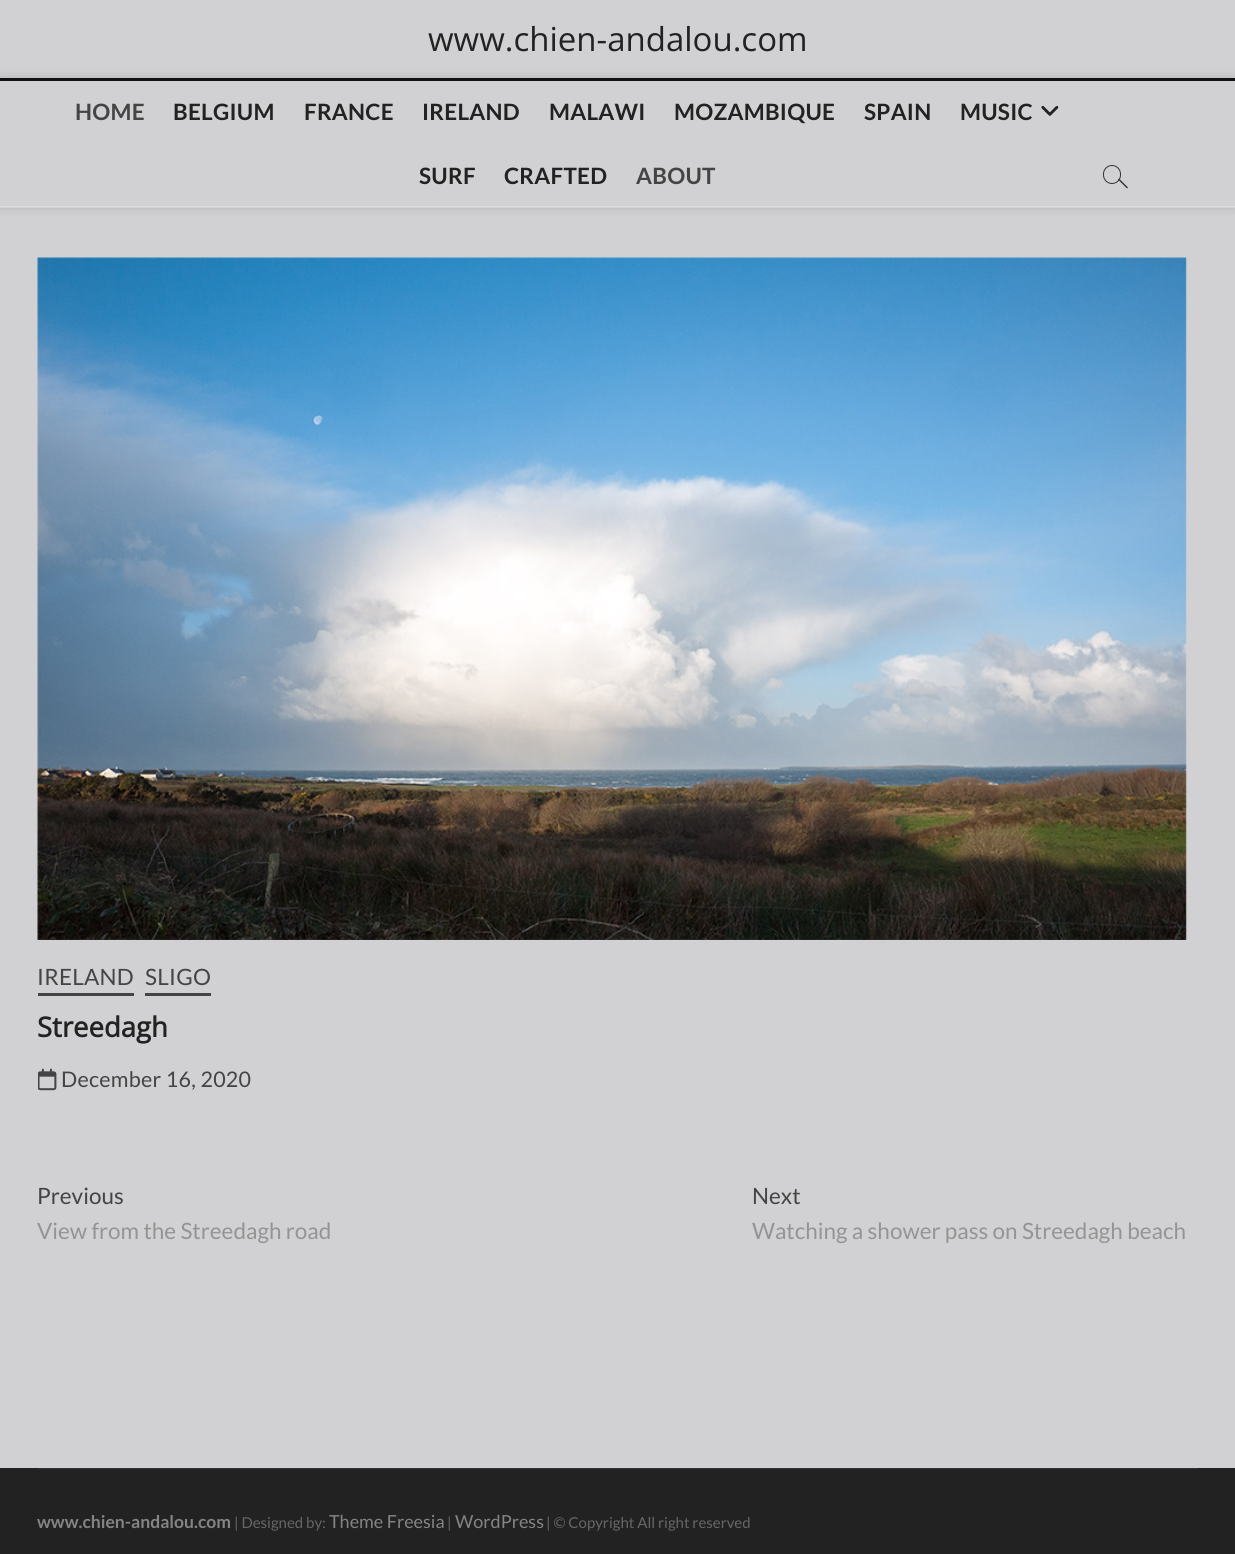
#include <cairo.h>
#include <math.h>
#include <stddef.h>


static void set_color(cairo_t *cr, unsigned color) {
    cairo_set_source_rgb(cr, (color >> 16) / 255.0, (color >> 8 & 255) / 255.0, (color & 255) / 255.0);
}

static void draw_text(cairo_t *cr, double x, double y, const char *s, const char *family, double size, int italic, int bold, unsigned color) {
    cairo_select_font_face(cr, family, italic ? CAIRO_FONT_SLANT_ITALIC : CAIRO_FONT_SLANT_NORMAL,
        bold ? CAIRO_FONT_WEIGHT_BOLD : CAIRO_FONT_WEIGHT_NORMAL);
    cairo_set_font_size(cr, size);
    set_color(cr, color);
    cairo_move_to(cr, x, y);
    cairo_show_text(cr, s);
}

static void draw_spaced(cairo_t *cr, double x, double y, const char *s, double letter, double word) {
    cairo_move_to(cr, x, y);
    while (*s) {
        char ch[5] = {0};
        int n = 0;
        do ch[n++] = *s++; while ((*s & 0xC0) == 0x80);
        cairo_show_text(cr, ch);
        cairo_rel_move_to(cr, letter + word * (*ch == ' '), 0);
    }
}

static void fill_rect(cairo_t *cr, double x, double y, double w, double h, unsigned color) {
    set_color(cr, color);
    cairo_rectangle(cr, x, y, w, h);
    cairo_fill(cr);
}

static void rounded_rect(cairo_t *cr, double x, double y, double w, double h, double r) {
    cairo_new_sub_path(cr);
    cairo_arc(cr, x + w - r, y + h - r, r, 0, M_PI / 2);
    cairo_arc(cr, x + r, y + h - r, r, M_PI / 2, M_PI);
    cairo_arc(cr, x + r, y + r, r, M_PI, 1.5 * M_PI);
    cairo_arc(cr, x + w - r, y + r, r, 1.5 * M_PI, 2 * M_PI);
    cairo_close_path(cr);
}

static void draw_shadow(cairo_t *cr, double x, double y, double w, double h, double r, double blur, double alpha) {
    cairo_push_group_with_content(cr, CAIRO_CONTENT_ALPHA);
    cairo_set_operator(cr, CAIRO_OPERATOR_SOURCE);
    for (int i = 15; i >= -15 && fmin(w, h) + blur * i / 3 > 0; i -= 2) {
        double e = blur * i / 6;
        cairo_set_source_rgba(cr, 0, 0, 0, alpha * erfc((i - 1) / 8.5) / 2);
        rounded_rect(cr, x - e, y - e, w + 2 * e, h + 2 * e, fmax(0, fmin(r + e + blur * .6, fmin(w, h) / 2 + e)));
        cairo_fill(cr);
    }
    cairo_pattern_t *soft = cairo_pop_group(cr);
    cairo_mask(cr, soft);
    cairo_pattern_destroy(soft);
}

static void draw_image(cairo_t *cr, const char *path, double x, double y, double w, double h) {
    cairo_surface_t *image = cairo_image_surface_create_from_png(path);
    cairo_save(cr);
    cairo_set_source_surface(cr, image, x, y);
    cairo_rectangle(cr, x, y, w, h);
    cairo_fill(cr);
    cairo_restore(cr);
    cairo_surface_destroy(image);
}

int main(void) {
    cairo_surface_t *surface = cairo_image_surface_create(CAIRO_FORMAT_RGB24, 1235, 1554);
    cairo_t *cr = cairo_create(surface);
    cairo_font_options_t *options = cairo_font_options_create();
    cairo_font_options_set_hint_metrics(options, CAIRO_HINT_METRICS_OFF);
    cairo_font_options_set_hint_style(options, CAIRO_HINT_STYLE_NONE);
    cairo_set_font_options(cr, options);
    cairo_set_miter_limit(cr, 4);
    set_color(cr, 0xD1D1D3);
    cairo_paint(cr);
    draw_text(cr, 428, 51, "www.chien-andalou.com", "Open Sans", 33, 0, 0, 0x222222);
    cairo_save(cr);
    cairo_set_fill_rule(cr, CAIRO_FILL_RULE_EVEN_ODD);
    cairo_new_path(cr);
    cairo_move_to(cr, 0, 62);
    cairo_line_to(cr, 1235, 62);
    cairo_line_to(cr, 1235, 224);
    cairo_line_to(cr, 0, 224);
    cairo_close_path(cr);
    cairo_move_to(cr, 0, 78);
    cairo_line_to(cr, 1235, 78);
    cairo_line_to(cr, 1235, 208);
    cairo_line_to(cr, 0, 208);
    cairo_close_path(cr);
    cairo_clip(cr);
    set_color(cr, 0x000000);
    draw_shadow(cr, 0, 78, 1235, 130, 0, 5, 0.15);
    cairo_restore(cr);
    fill_rect(cr, 0, 78, 1235, 3, 0x111111);
    fill_rect(cr, 0, 206, 1235, 1, 0xDDDDDD);
    cairo_select_font_face(cr, "Lato", CAIRO_FONT_SLANT_NORMAL, CAIRO_FONT_WEIGHT_BOLD);
    cairo_set_font_size(cr, 22.5);
    set_color(cr, 0x444444);
    draw_spaced(cr, 75, 120, "HOME", 0.25, 0);
    set_color(cr, 0x222222);
    draw_spaced(cr, 173, 120, "BELGIUM", 0.25, 0);
    draw_spaced(cr, 304, 120, "FRANCE", 0.25, 0);
    draw_spaced(cr, 422, 120, "IRELAND", 0.25, 0);
    draw_spaced(cr, 549, 120, "MALAWI", 0.25, 0);
    draw_spaced(cr, 674, 120, "MOZAMBIQUE", 0.25, 0);
    draw_spaced(cr, 864, 120, "SPAIN", 0.25, 0);
    draw_spaced(cr, 960, 120, "MUSIC", 0.25, 0);
    draw_image(cr, "assets/img1.png", 1041, 105, 18, 11);
    draw_spaced(cr, 419, 184, "SURF", 0.25, 0);
    draw_spaced(cr, 504, 184, "CRAFTED", 0.25, 0);
    set_color(cr, 0x444444);
    draw_spaced(cr, 636, 184, "ABOUT", 0.25, 0);
    rounded_rect(cr, 1103.5, 165.5, 17, 18, 8.5);
    set_color(cr, 0x333333);
    cairo_set_line_width(cr, 1);
    cairo_stroke(cr);
    cairo_new_path(cr);
    cairo_move_to(cr, 1118, 179.5);
    cairo_line_to(cr, 1119, 178.5);
    cairo_line_to(cr, 1128, 187.5);
    cairo_line_to(cr, 1127, 188.5);
    cairo_close_path(cr);
    cairo_fill(cr);
    draw_image(cr, "assets/img2.png", 37, 257, 1150, 683);
    cairo_select_font_face(cr, "Lato", CAIRO_FONT_SLANT_NORMAL, CAIRO_FONT_WEIGHT_NORMAL);
    set_color(cr, 0x444444);
    draw_spaced(cr, 37, 985, "IRELAND", 0.25, 0);
    fill_rect(cr, 38, 993, 96, 3, 0x444444);
    draw_spaced(cr, 145, 985, "SLIGO", 0.25, 0);
    fill_rect(cr, 145, 993, 66, 3, 0x444444);
    draw_text(cr, 37, 1037, "Streedagh", "Open Sans", 27.5, 0, 1, 0x222222);
    draw_image(cr, "assets/img3.png", 38, 1068, 19, 23);
    cairo_select_font_face(cr, "Lato", CAIRO_FONT_SLANT_NORMAL, CAIRO_FONT_WEIGHT_NORMAL);
    cairo_set_font_size(cr, 21.5);
    set_color(cr, 0x444444);
    draw_spaced(cr, 61, 1087, "December 16, 2020", 0.25, 0);
    draw_text(cr, 37, 1204, "Previous", "Lato", 22.5, 0, 0, 0x444444);
    draw_text(cr, 37, 1239, "View from the Streedagh road", "Lato", 22.5, 0, 0, 0x949494);
    draw_text(cr, 752, 1204, "Next", "Lato", 22.5, 0, 0, 0x444444);
    draw_text(cr, 752, 1239, "Watching a shower pass on Streedagh beach", "Lato", 22.5, 0, 0, 0x949494);
    fill_rect(cr, 0, 1468, 1235, 86, 0x222222);
    fill_rect(cr, 38, 1468, 1160, 1, 0x333333);
    draw_text(cr, 37, 1528, "www.chien-andalou.com", "Lato", 17.5, 0, 1, 0x848484);
    draw_text(cr, 234, 1528, "| Designed by:", "Lato", 15, 0, 0, 0x666666);
    draw_text(cr, 329, 1528, "Theme Freesia", "Lato", 18, 0, 0, 0x848484);
    draw_text(cr, 447, 1528, "|", "Lato", 15, 0, 0, 0x666666);
    draw_text(cr, 455, 1528, "WordPress", "Lato", 18, 0, 0, 0x848484);
    draw_text(cr, 546, 1528, "| © Copyright All right reserved", "Lato", 15, 0, 0, 0x666666);
    cairo_surface_write_to_png(surface, "output.png");
    cairo_font_options_destroy(options);
    cairo_destroy(cr);
    cairo_surface_destroy(surface);
    return 0;
}
